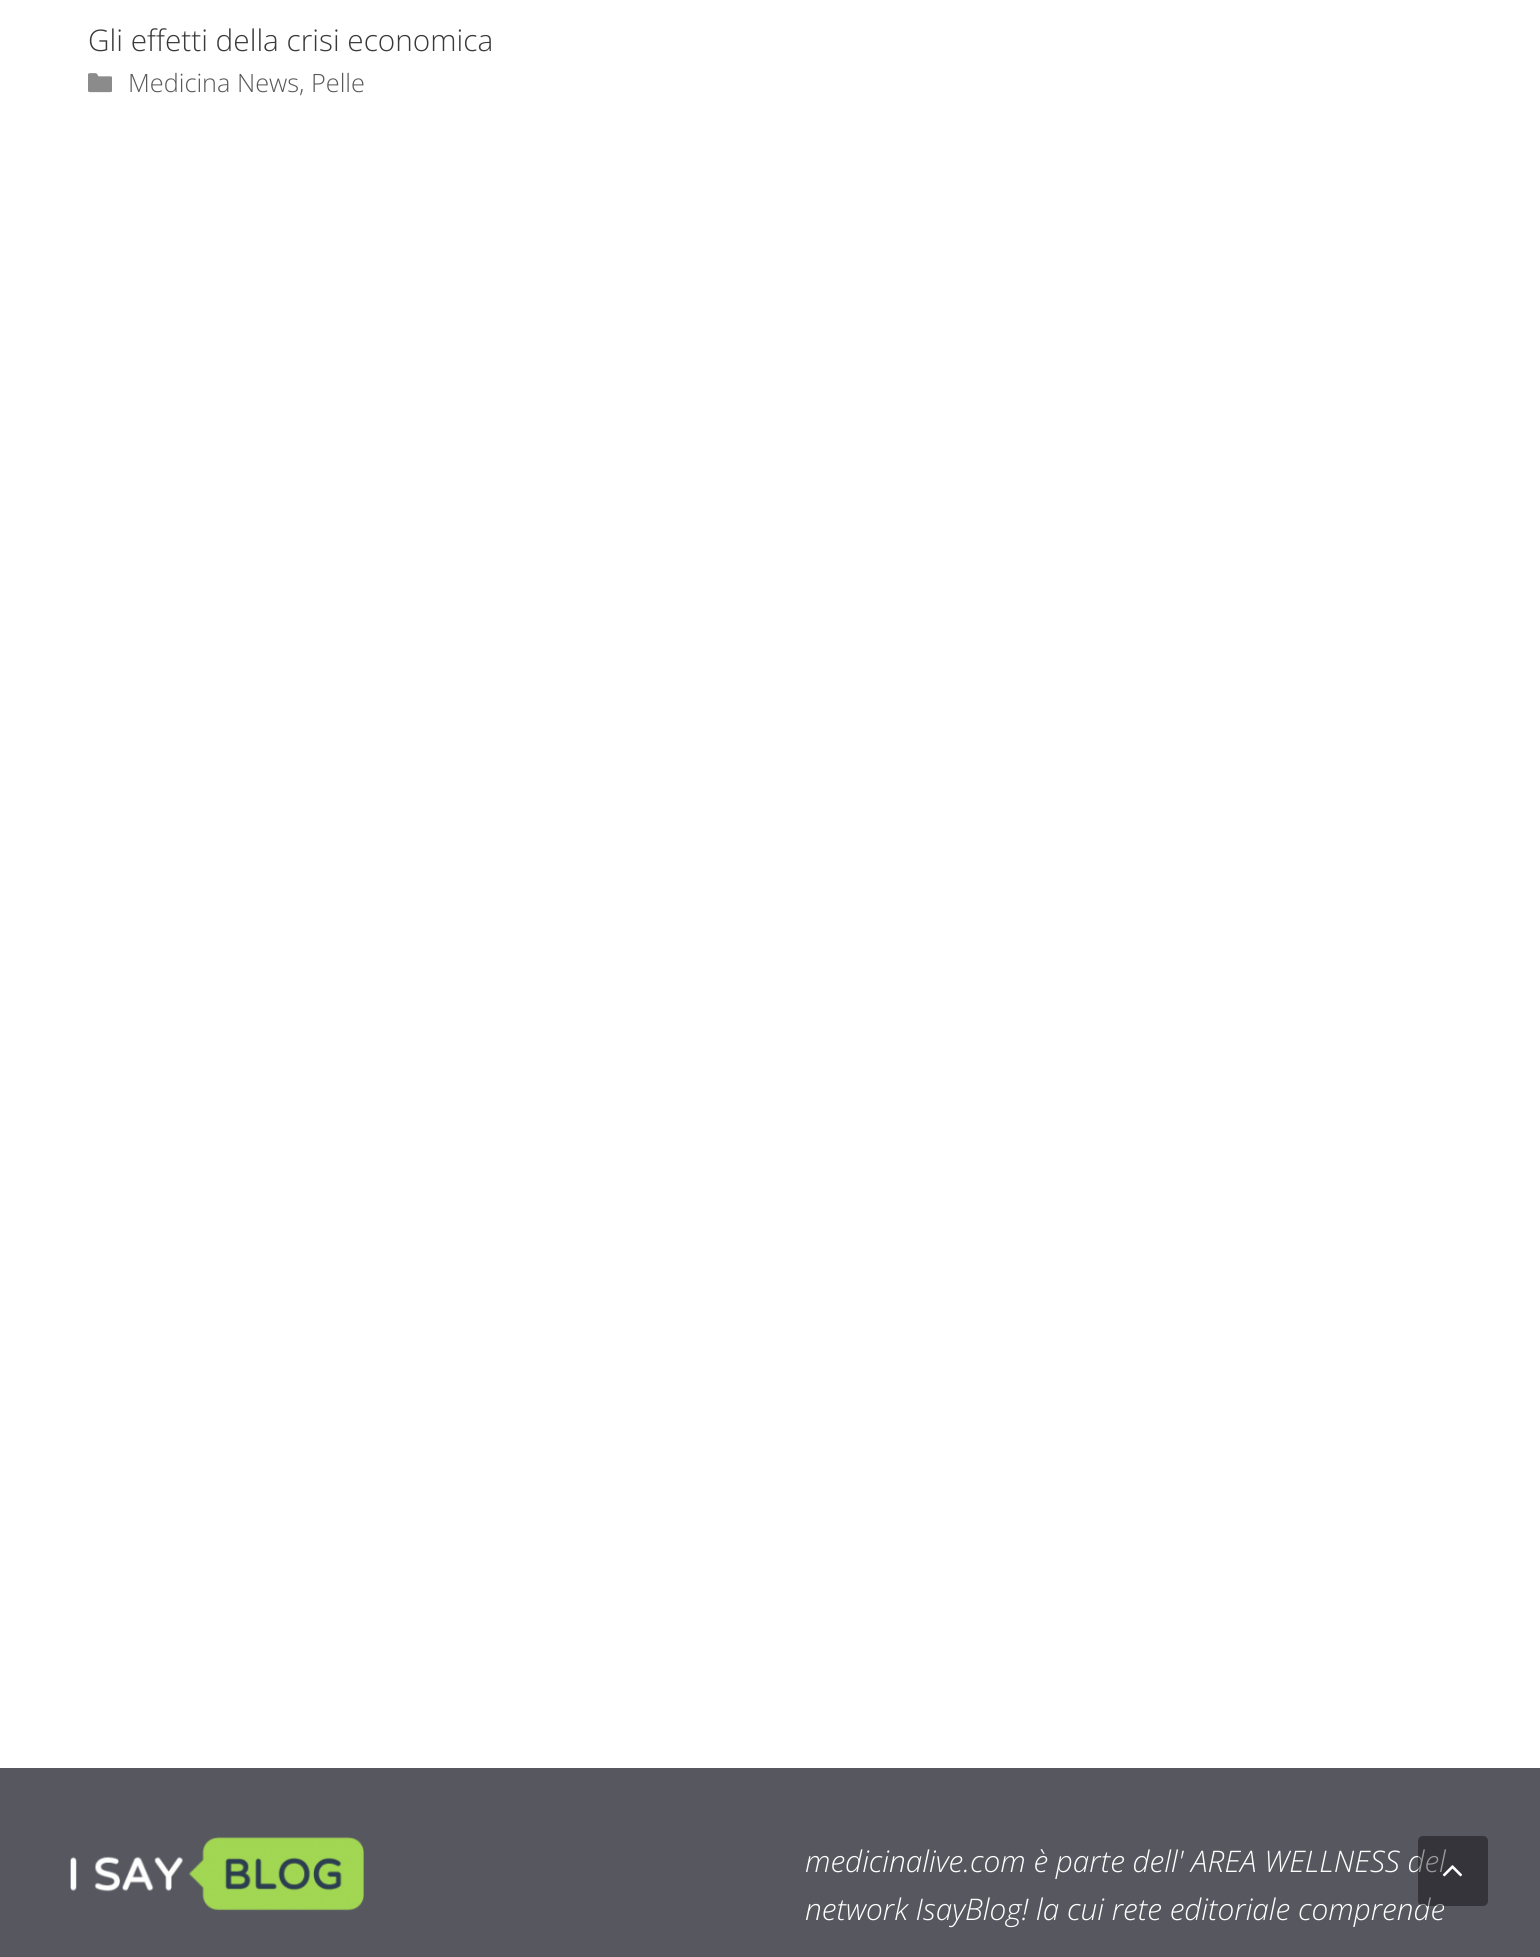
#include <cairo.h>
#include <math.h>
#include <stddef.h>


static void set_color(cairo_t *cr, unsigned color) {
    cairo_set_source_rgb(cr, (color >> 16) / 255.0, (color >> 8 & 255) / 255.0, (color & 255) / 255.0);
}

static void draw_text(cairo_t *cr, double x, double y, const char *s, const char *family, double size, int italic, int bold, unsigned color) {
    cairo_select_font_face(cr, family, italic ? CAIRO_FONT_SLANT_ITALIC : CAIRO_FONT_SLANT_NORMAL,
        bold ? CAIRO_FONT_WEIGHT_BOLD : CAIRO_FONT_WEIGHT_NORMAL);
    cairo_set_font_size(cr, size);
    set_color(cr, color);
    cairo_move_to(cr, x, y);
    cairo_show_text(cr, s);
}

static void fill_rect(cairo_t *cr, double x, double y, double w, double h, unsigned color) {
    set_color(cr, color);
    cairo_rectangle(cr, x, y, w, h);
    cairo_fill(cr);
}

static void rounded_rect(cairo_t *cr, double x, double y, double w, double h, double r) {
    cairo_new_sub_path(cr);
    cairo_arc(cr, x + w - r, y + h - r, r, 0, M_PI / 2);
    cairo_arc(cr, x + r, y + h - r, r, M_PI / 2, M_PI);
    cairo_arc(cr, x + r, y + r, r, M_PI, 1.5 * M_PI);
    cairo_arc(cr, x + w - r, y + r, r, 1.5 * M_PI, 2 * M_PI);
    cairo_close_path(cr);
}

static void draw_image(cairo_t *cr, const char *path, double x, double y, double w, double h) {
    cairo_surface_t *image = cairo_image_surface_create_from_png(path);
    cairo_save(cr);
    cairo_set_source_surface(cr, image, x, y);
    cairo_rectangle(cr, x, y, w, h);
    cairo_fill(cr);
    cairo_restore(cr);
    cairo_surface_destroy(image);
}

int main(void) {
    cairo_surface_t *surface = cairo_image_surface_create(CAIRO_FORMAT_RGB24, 1540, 1957);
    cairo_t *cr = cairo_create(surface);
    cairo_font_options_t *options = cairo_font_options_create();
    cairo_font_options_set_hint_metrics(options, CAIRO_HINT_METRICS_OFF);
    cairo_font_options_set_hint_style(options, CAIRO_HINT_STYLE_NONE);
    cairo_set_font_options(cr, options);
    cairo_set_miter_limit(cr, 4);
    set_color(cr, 0xFFFFFF);
    cairo_paint(cr);
    draw_text(cr, 88, 51, "Gli effetti della crisi economica", "Open Sans Light", 29.75, 0, 0, 0x3A3A3A);
    draw_image(cr, "assets/img1.png", 88, 73, 24, 20);
    draw_text(cr, 128, 92, "Medicina News, Pelle", "Open Sans Light", 25.25, 0, 0, 0x595959);
    fill_rect(cr, 0, 1768, 1540, 189, 0x575760);
    draw_image(cr, "assets/img2.png", 70, 1837, 294, 74);
    draw_text(cr, 805, 1872, "medicinalive.com è parte dell' AREA WELLNESS del", "Open Sans Light", 29.75, 1, 0, 0xFFFFFF);
    draw_text(cr, 805, 1920, "network IsayBlog! la cui rete editoriale comprende", "Open Sans Light", 29.75, 1, 0, 0xFFFFFF);
    cairo_set_source_rgba(cr, 0, 0, 0, 0.4);
    rounded_rect(cr, 1418, 1836, 70, 70, 5);
    cairo_fill(cr);
    draw_image(cr, "assets/img3.png", 1442, 1865, 21, 12);
    cairo_surface_write_to_png(surface, "output.png");
    cairo_font_options_destroy(options);
    cairo_destroy(cr);
    cairo_surface_destroy(surface);
    return 0;
}
